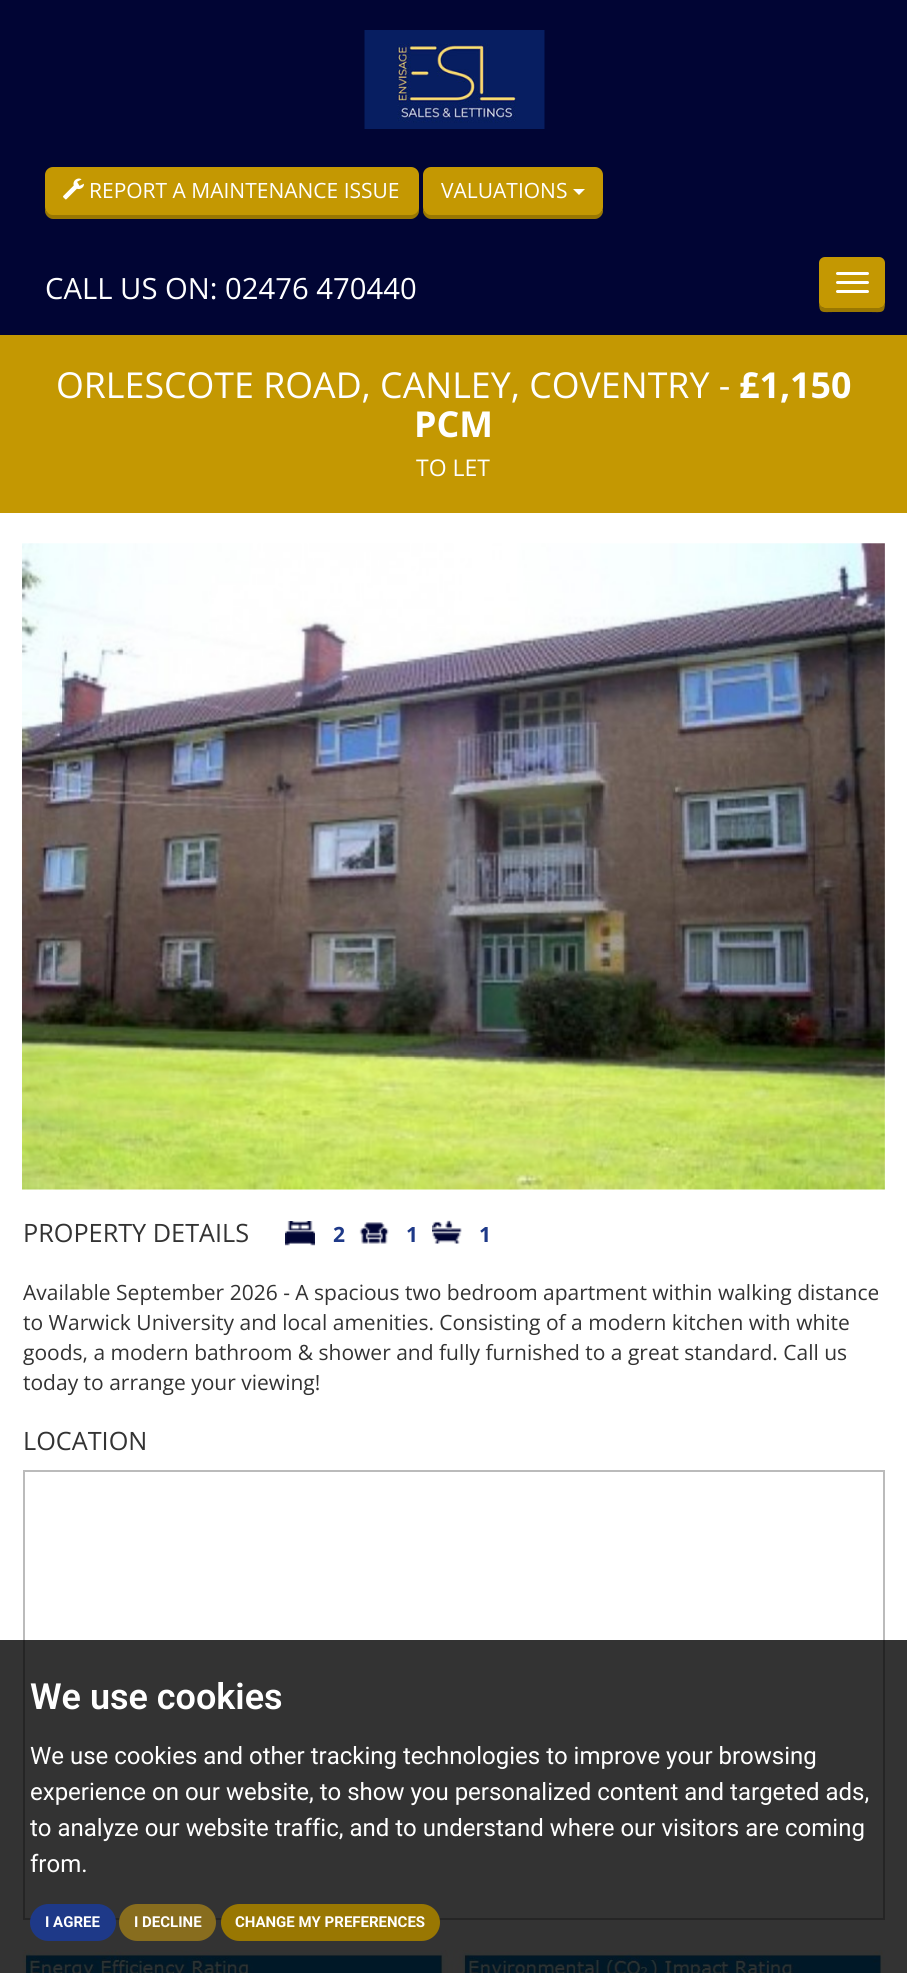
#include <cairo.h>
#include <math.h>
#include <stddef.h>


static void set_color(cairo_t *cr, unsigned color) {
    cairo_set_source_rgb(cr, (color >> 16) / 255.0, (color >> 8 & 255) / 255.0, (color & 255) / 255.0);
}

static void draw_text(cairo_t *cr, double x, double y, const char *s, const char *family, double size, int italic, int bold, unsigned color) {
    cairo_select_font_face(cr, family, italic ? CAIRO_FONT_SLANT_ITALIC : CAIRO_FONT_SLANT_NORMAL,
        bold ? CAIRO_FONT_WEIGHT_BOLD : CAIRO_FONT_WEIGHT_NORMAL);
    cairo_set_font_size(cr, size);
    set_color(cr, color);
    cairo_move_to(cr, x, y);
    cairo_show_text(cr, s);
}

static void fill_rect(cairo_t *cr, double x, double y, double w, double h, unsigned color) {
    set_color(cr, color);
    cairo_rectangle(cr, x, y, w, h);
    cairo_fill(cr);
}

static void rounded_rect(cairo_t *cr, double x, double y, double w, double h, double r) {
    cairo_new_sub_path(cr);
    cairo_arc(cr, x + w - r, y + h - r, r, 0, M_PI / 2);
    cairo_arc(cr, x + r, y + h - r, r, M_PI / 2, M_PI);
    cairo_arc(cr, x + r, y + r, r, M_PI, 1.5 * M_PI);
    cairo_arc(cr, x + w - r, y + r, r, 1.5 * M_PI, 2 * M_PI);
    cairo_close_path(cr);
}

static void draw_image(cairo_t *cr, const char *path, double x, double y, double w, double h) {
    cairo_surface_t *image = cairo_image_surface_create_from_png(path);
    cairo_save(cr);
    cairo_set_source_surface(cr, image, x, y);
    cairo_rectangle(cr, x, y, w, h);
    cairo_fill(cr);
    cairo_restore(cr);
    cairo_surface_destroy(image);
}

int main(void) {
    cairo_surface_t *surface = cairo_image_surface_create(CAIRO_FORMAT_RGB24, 907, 1973);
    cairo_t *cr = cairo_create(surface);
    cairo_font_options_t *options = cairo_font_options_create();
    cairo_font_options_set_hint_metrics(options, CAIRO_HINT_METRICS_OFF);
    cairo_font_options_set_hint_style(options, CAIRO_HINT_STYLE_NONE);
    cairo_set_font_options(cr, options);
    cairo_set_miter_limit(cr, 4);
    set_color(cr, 0x010534);
    cairo_paint(cr);
    draw_image(cr, "assets/img1.png", 364, 30, 181, 99);
    set_color(cr, 0x997702);
    cairo_new_path(cr);
    cairo_move_to(cr, 45, 207);
    cairo_line_to(cr, 45, 211);
    cairo_curve_to(cr, 45, 215, 49, 219, 53, 219);
    cairo_line_to(cr, 411, 219);
    cairo_curve_to(cr, 415, 219, 419, 215, 419, 211);
    cairo_line_to(cr, 419, 179);
    cairo_line_to(cr, 418, 176);
    cairo_line_to(cr, 418, 207);
    cairo_curve_to(cr, 418, 211, 415, 214, 411, 214);
    cairo_line_to(cr, 52, 214);
    cairo_curve_to(cr, 48, 214, 45, 211, 45, 207);
    cairo_close_path(cr);
    cairo_fill(cr);
    set_color(cr, 0xC49802);
    rounded_rect(cr, 45, 167, 374, 48, 8);
    cairo_fill(cr);
    draw_image(cr, "assets/img2.png", 63, 178, 21, 22);
    draw_text(cr, 89, 198, "REPORT A MAINTENANCE ISSUE", "Open Sans", 21, 0, 0, 0xFFFFFF);
    set_color(cr, 0x997702);
    cairo_new_path(cr);
    cairo_move_to(cr, 423, 207);
    cairo_line_to(cr, 423, 211);
    cairo_curve_to(cr, 423, 215, 427, 219, 431, 219);
    cairo_line_to(cr, 595, 219);
    cairo_curve_to(cr, 599, 219, 603, 215, 603, 211);
    cairo_line_to(cr, 603, 207);
    cairo_curve_to(cr, 603, 211, 600, 214, 596, 214);
    cairo_line_to(cr, 430, 214);
    cairo_curve_to(cr, 426, 214, 423, 211, 423, 207);
    cairo_close_path(cr);
    cairo_fill(cr);
    set_color(cr, 0xC49802);
    rounded_rect(cr, 423, 167, 180, 48, 8);
    cairo_fill(cr);
    draw_text(cr, 441, 198, "VALUATIONS", "Open Sans", 21, 0, 0, 0xFFFFFF);
    cairo_new_path(cr);
    cairo_move_to(cr, 573, 189);
    cairo_line_to(cr, 585, 189);
    cairo_line_to(cr, 579, 195);
    cairo_close_path(cr);
    cairo_fill(cr);
    draw_text(cr, 45, 299, "CALL US ON: 02476 470440", "Open Sans", 29.25, 0, 0, 0xFFFFFF);
    set_color(cr, 0x997702);
    cairo_new_path(cr);
    cairo_move_to(cr, 819, 302);
    cairo_curve_to(cr, 819, 314, 822, 312, 834, 312);
    cairo_line_to(cr, 870, 312);
    cairo_curve_to(cr, 882, 312, 885, 314, 885, 302);
    cairo_curve_to(cr, 885, 305, 882, 308, 879, 308);
    cairo_line_to(cr, 825, 308);
    cairo_curve_to(cr, 822, 308, 819, 305, 819, 302);
    cairo_close_path(cr);
    cairo_fill(cr);
    set_color(cr, 0xC49802);
    rounded_rect(cr, 820, 258, 64, 49, 5);
    cairo_fill_preserve(cr);
    cairo_stroke(cr);
    set_color(cr, 0xFFFFFF);
    rounded_rect(cr, 836, 272, 33, 3, 1.5);
    cairo_fill(cr);
    rounded_rect(cr, 836, 281, 33, 3, 1.5);
    cairo_fill(cr);
    rounded_rect(cr, 836, 290, 33, 3, 1.5);
    cairo_fill(cr);
    fill_rect(cr, 0, 335, 907, 178, 0xC49802);
    draw_text(cr, 56, 398, "ORLESCOTE ROAD, CANLEY, COVENTRY -", "Open Sans", 35.75, 0, 0, 0xFFFFFF);
    draw_text(cr, 739, 398, "£1,150", "Open Sans", 35.75, 0, 1, 0xFFFFFF);
    draw_text(cr, 414, 437, "PCM", "Open Sans", 35.75, 0, 1, 0xFFFFFF);
    draw_text(cr, 416, 476, "TO LET", "Open Sans", 23, 0, 0, 0xFFFFFF);
    fill_rect(cr, 0, 513, 907, 1460, 0xFFFFFF);
    draw_image(cr, "assets/img3.png", 22, 543, 863, 647);
    draw_text(cr, 23, 1242, "PROPERTY DETAILS", "Open Sans", 25.25, 0, 0, 0x333333);
    draw_image(cr, "assets/img4.png", 285, 1221, 30, 25);
    draw_text(cr, 333, 1242, "2", "Open Sans", 21, 0, 1, 0x1E3988);
    draw_image(cr, "assets/img5.png", 359, 1222, 30, 22);
    draw_text(cr, 406, 1242, "1", "Open Sans", 21, 0, 1, 0x1E3988);
    draw_image(cr, "assets/img6.png", 432, 1220, 30, 24);
    draw_text(cr, 479, 1242, "1", "Open Sans", 21, 0, 1, 0x1E3988);
    draw_text(cr, 23, 1300, "Available September 2026 - A spacious two bedroom apartment within walking distance", "Open Sans", 21, 0, 0, 0x333333);
    draw_text(cr, 23, 1330, "to Warwick University and local amenities. Consisting of a modern kitchen with white", "Open Sans", 21, 0, 0, 0x333333);
    draw_text(cr, 23, 1360, "goods, a modern bathroom & shower and fully furnished to a great standard. Call us", "Open Sans", 21, 0, 0, 0x333333);
    draw_text(cr, 23, 1390, "today to arrange your viewing!", "Open Sans", 21, 0, 0, 0x333333);
    draw_text(cr, 23, 1450, "LOCATION", "Open Sans", 25.25, 0, 0, 0x333333);
    cairo_rectangle(cr, 24, 1471, 860, 448);
    set_color(cr, 0xBBBBBB);
    cairo_stroke(cr);
    draw_image(cr, "assets/img7.png", 22, 1950, 863, 23);
    cairo_set_source_rgba(cr, 0, 0, 0, 0.8);
    cairo_rectangle(cr, 0, 1640, 907, 333);
    cairo_fill(cr);
    draw_text(cr, 30, 1709, "We use cookies", "Roboto SemiBold", 36, 0, 0, 0xFFFFFF);
    draw_text(cr, 30, 1764, "We use cookies and other tracking technologies to improve your browsing", "Roboto", 24, 0, 0, 0xFFFFFF);
    draw_text(cr, 30, 1800, "experience on our website, to show you personalized content and targeted ads,", "Roboto", 24, 0, 0, 0xFFFFFF);
    draw_text(cr, 30, 1836, "to analyze our website traffic, and to understand where our visitors are coming", "Roboto", 24, 0, 0, 0xFFFFFF);
    draw_text(cr, 30, 1872, "from.", "Roboto", 24, 0, 0, 0xFFFFFF);
    set_color(cr, 0x1E3988);
    rounded_rect(cr, 30, 1904, 86, 37, 18.5);
    cairo_fill(cr);
    draw_text(cr, 45, 1927, "I AGREE", "Roboto", 15, 0, 1, 0xFFFFFF);
    set_color(cr, 0x886D1E);
    rounded_rect(cr, 119, 1904, 97, 37, 18.5);
    cairo_fill(cr);
    draw_text(cr, 134, 1927, "I DECLINE", "Roboto", 15, 0, 1, 0xFFFFFF);
    set_color(cr, 0x997702);
    rounded_rect(cr, 221, 1904, 219, 37, 18.5);
    cairo_fill(cr);
    draw_text(cr, 235, 1927, "CHANGE MY PREFERENCES", "Roboto", 15, 0, 1, 0xFFFFFF);
    cairo_surface_write_to_png(surface, "output.png");
    cairo_font_options_destroy(options);
    cairo_destroy(cr);
    cairo_surface_destroy(surface);
    return 0;
}
